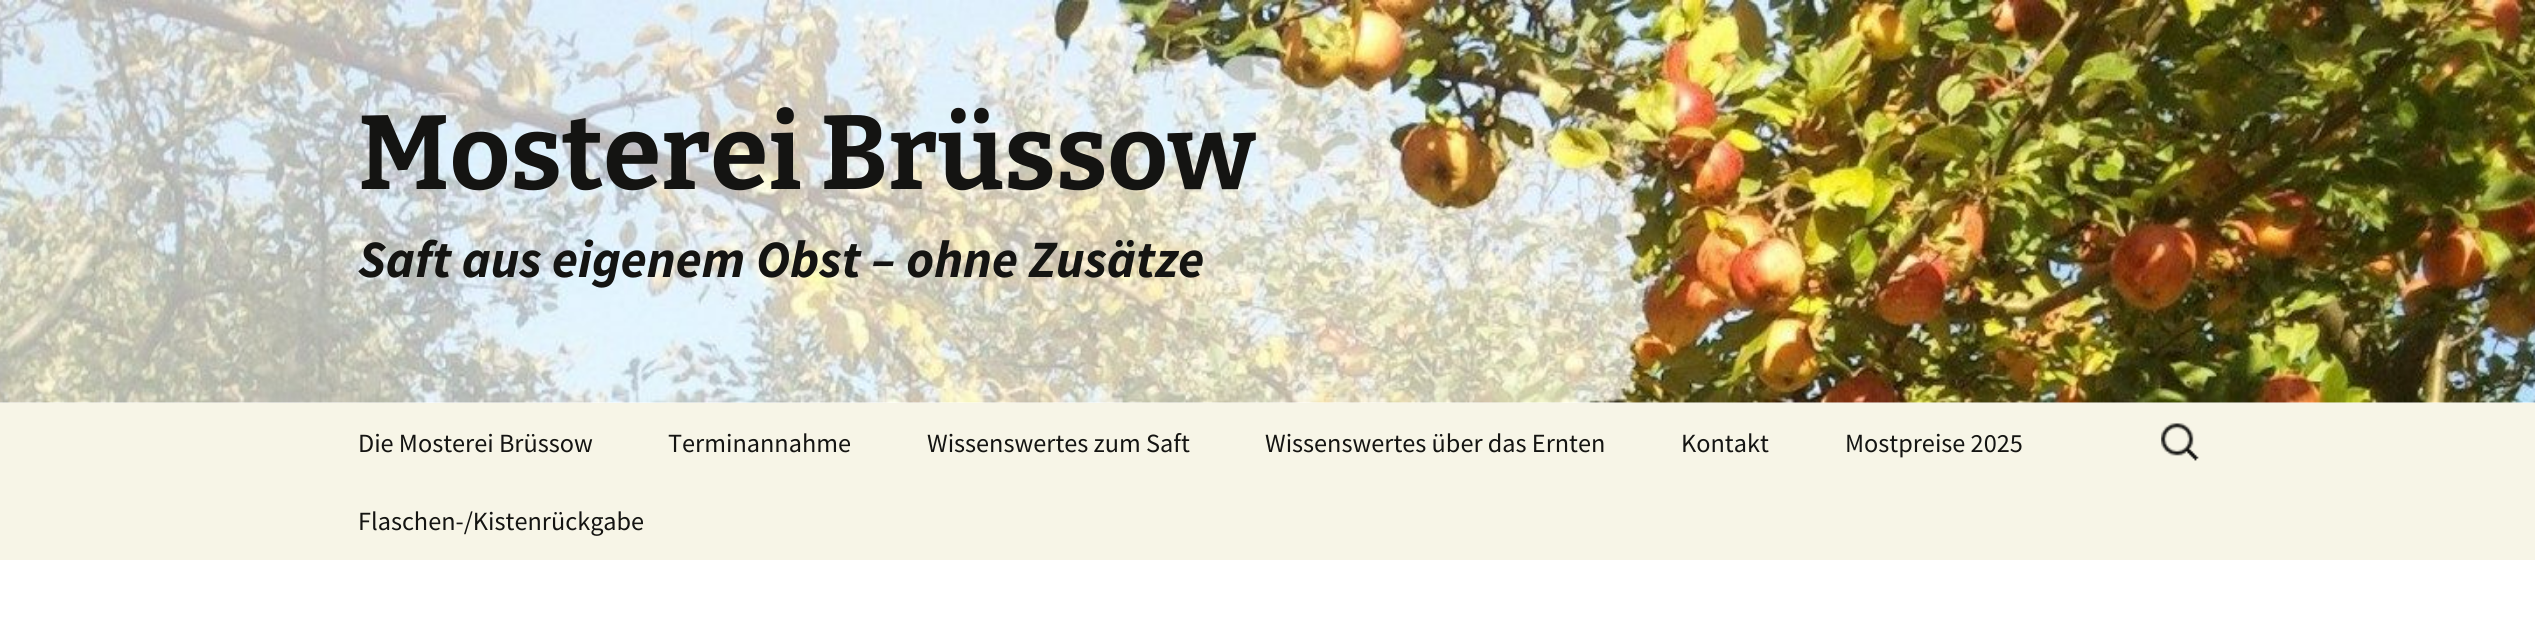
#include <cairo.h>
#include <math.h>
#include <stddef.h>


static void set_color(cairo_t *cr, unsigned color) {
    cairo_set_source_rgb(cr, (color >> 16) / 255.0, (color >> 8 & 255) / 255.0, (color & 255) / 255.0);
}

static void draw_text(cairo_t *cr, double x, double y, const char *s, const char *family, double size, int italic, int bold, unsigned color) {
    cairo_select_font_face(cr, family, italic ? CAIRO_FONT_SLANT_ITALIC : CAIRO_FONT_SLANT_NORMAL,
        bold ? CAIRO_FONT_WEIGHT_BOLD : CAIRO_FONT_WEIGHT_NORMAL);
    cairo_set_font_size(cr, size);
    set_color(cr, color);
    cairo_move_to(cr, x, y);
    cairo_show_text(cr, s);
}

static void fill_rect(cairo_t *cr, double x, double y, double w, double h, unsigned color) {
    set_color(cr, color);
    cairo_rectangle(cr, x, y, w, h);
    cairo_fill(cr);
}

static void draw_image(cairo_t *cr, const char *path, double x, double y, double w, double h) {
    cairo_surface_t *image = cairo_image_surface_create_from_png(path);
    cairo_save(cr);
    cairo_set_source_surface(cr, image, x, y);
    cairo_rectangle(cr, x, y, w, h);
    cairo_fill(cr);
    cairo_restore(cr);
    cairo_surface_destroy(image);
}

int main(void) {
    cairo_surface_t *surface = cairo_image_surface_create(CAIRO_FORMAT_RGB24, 2535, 633);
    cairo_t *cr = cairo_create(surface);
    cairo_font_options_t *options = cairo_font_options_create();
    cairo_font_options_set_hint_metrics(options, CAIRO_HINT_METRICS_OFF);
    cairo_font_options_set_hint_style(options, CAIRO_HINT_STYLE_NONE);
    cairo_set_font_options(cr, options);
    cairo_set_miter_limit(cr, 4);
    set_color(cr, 0xFFFFFF);
    cairo_paint(cr);
    draw_image(cr, "assets/img1.png", 0, 0, 2535, 403);
    draw_text(cr, 358, 189, "Mosterei Brüssow", "Bitter Thin", 105, 0, 0, 0x141412);
    draw_text(cr, 358, 277, "Saft aus eigenem Obst – ohne Zusätze", "Source Sans Pro", 52.5, 1, 1, 0x141412);
    fill_rect(cr, 0, 403, 2535, 157, 0xF7F5E7);
    draw_text(cr, 358, 452, "Die Mosterei Brüssow", "Source Sans Pro", 26.25, 0, 0, 0x141412);
    draw_text(cr, 668, 452, "Terminannahme", "Source Sans Pro", 26.25, 0, 0, 0x141412);
    draw_text(cr, 927, 452, "Wissenswertes zum Saft", "Source Sans Pro", 26.25, 0, 0, 0x141412);
    draw_text(cr, 1265, 452, "Wissenswertes über das Ernten", "Source Sans Pro", 26.25, 0, 0, 0x141412);
    draw_text(cr, 1681, 452, "Kontakt", "Source Sans Pro", 26.25, 0, 0, 0x141412);
    draw_text(cr, 1845, 452, "Mostpreise 2025", "Source Sans Pro", 26.25, 0, 0, 0x141412);
    draw_text(cr, 358, 530, "Flaschen-/Kistenrückgabe", "Source Sans Pro", 26.25, 0, 0, 0x141412);
    draw_image(cr, "assets/img2.png", 2161, 423, 38, 38);
    cairo_surface_write_to_png(surface, "output.png");
    cairo_font_options_destroy(options);
    cairo_destroy(cr);
    cairo_surface_destroy(surface);
    return 0;
}
